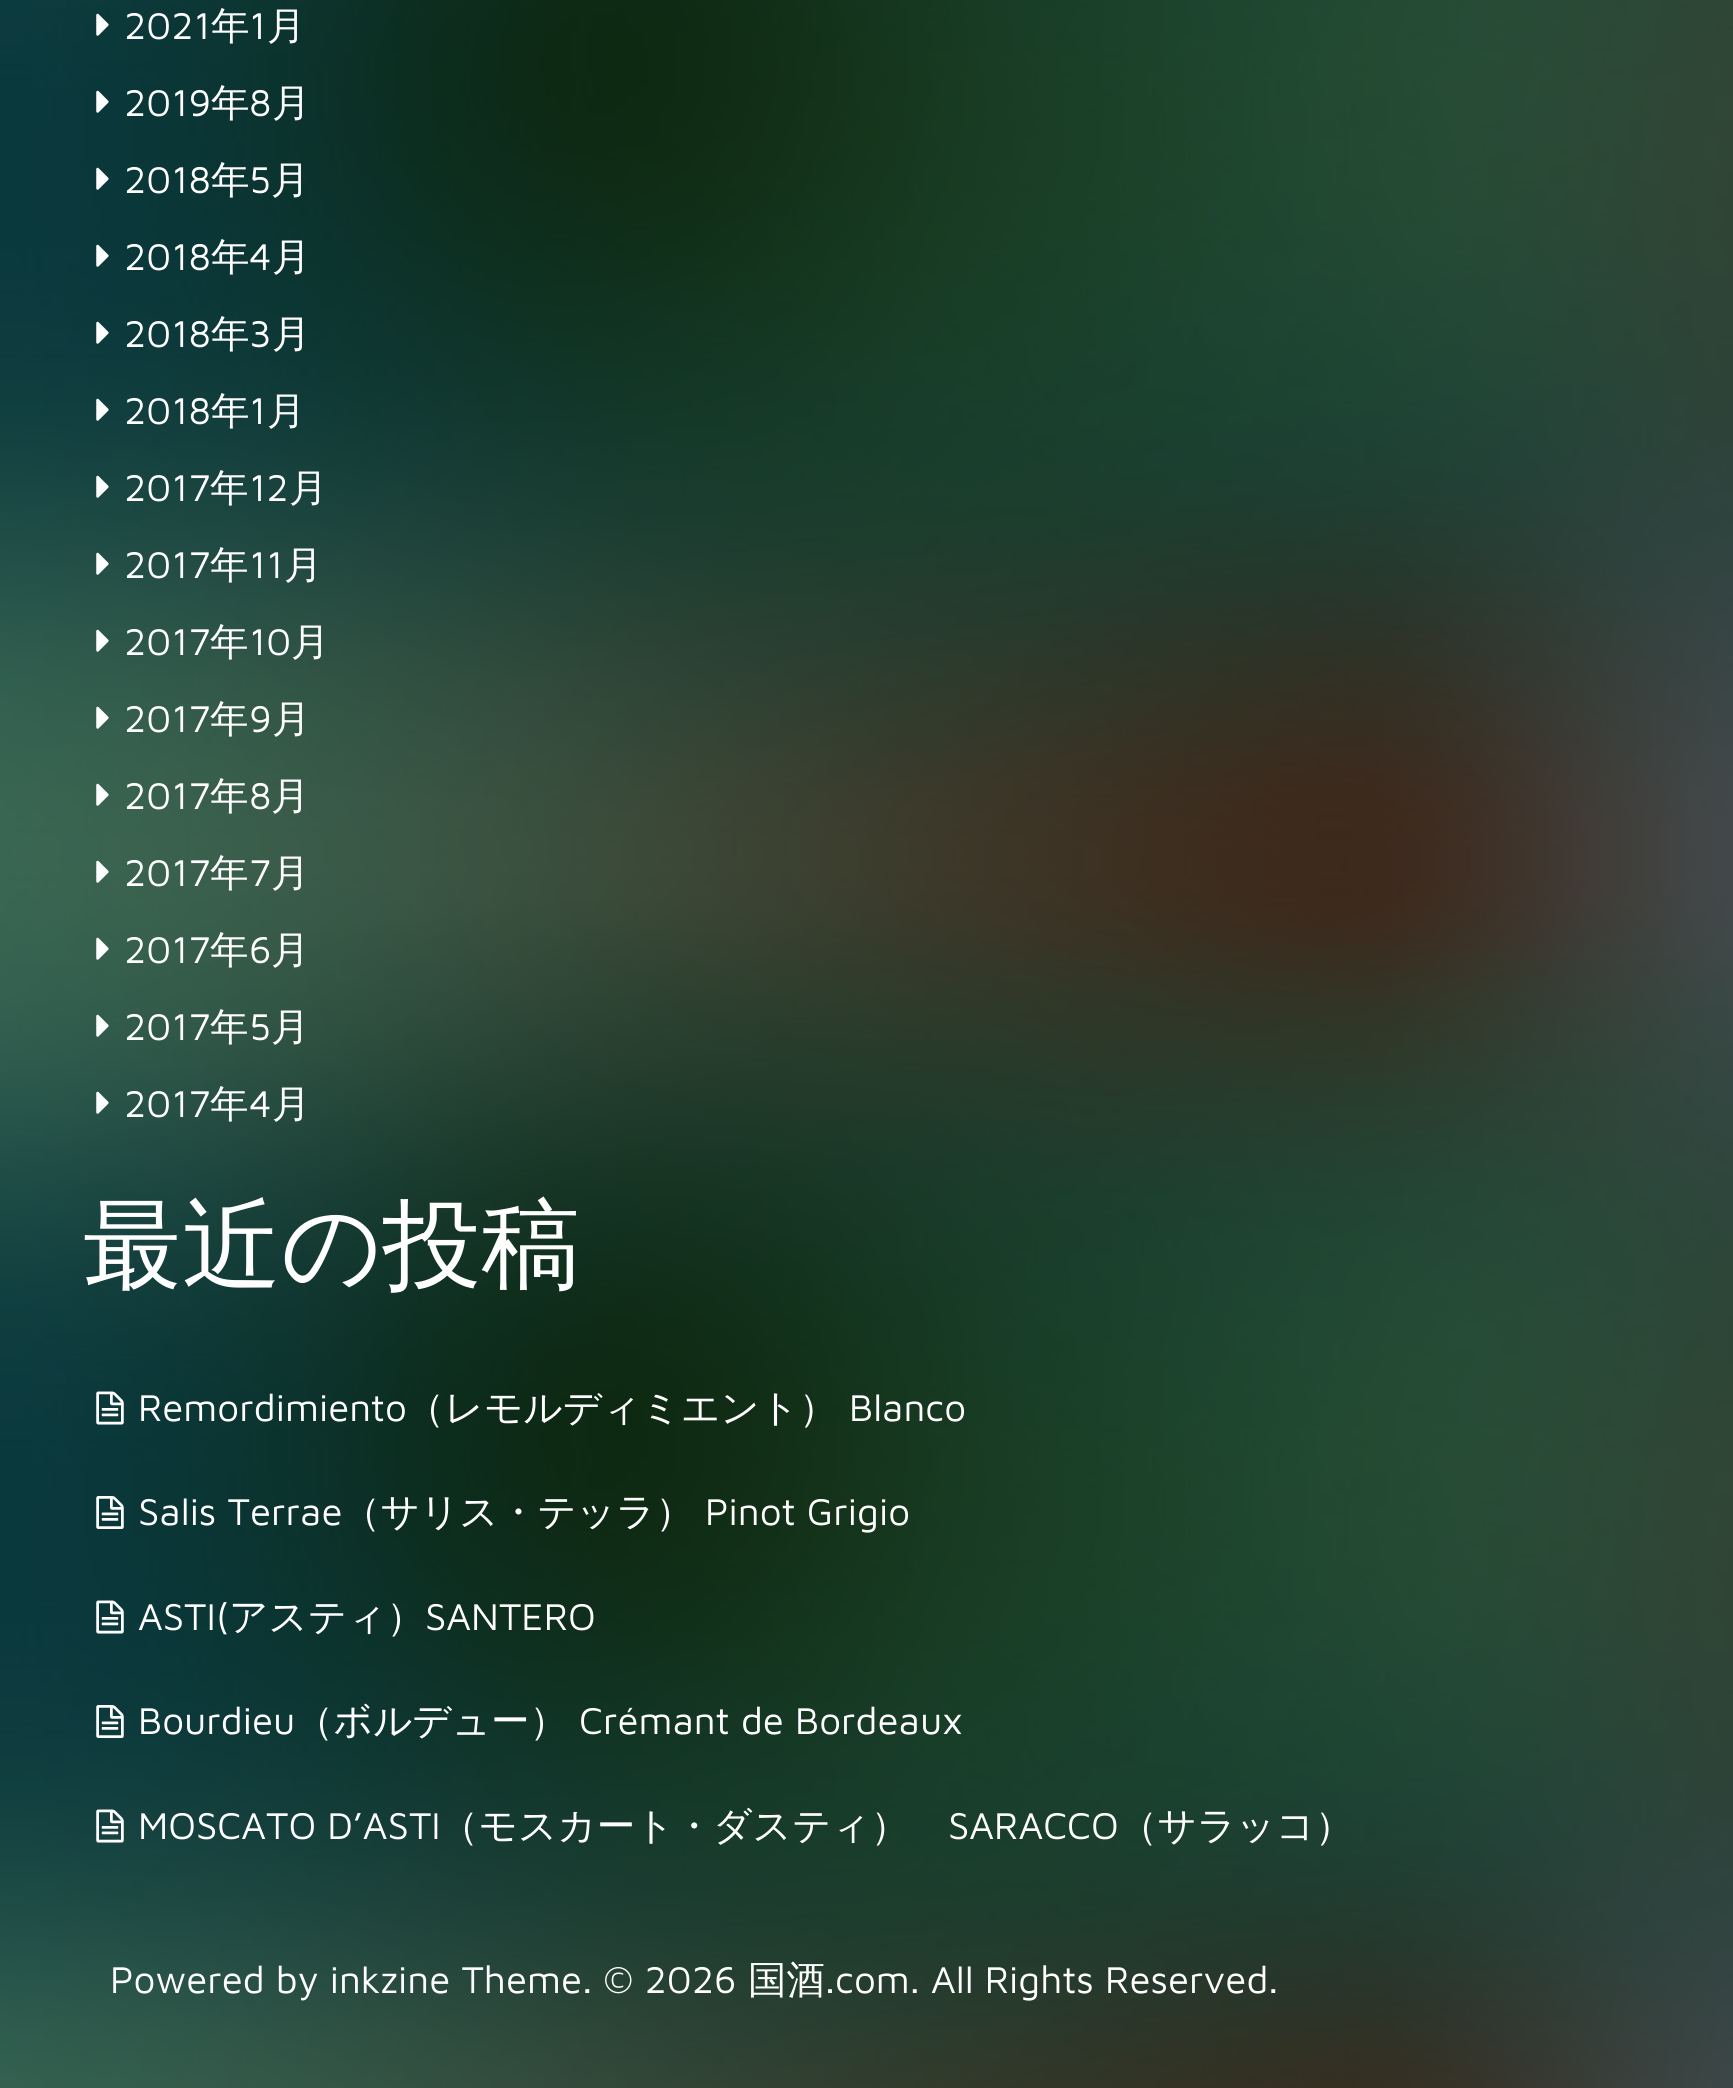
#include <cairo.h>
#include <math.h>
#include <stddef.h>


static void set_color(cairo_t *cr, unsigned color) {
    cairo_set_source_rgb(cr, (color >> 16) / 255.0, (color >> 8 & 255) / 255.0, (color & 255) / 255.0);
}

static void draw_text(cairo_t *cr, double x, double y, const char *s, const char *family, double size, int italic, int bold, unsigned color) {
    cairo_select_font_face(cr, family, italic ? CAIRO_FONT_SLANT_ITALIC : CAIRO_FONT_SLANT_NORMAL,
        bold ? CAIRO_FONT_WEIGHT_BOLD : CAIRO_FONT_WEIGHT_NORMAL);
    cairo_set_font_size(cr, size);
    set_color(cr, color);
    cairo_move_to(cr, x, y);
    cairo_show_text(cr, s);
}

static void draw_image(cairo_t *cr, const char *path, double x, double y, double w, double h) {
    cairo_surface_t *image = cairo_image_surface_create_from_png(path);
    cairo_save(cr);
    cairo_set_source_surface(cr, image, x, y);
    cairo_rectangle(cr, x, y, w, h);
    cairo_fill(cr);
    cairo_restore(cr);
    cairo_surface_destroy(image);
}

int main(void) {
    cairo_surface_t *surface = cairo_image_surface_create(CAIRO_FORMAT_RGB24, 1733, 2088);
    cairo_t *cr = cairo_create(surface);
    cairo_font_options_t *options = cairo_font_options_create();
    cairo_font_options_set_hint_metrics(options, CAIRO_HINT_METRICS_OFF);
    cairo_font_options_set_hint_style(options, CAIRO_HINT_STYLE_NONE);
    cairo_set_font_options(cr, options);
    cairo_set_miter_limit(cr, 4);
    set_color(cr, 0xFFFFFF);
    cairo_paint(cr);
    draw_image(cr, "assets/img1.png", 0, 0, 1733, 2088);
    draw_image(cr, "assets/img2.png", 96, 13, 13, 23);
    draw_text(cr, 124, 39, "2021", "Maven Pro", 38.5, 0, 0, 0xFFFFFF);
    draw_text(cr, 211, 39, "年", "WenQuanYi Zen Hei Medium", 38.5, 0, 0, 0xFFFFFF);
    draw_text(cr, 249, 39, "1", "Maven Pro", 38.5, 0, 0, 0xFFFFFF);
    draw_text(cr, 267, 39, "月", "WenQuanYi Zen Hei Medium", 38.5, 0, 0, 0xFFFFFF);
    draw_image(cr, "assets/img3.png", 96, 90, 13, 23);
    draw_text(cr, 124, 116, "2019", "Maven Pro", 38.5, 0, 0, 0xFFFFFF);
    draw_text(cr, 211, 116, "年", "WenQuanYi Zen Hei Medium", 38.5, 0, 0, 0xFFFFFF);
    draw_text(cr, 249, 116, "8", "Maven Pro", 38.5, 0, 0, 0xFFFFFF);
    draw_text(cr, 272, 116, "月", "WenQuanYi Zen Hei Medium", 38.5, 0, 0, 0xFFFFFF);
    draw_image(cr, "assets/img4.png", 96, 167, 13, 23);
    draw_text(cr, 124, 193, "2018", "Maven Pro", 38.5, 0, 0, 0xFFFFFF);
    draw_text(cr, 211, 193, "年", "WenQuanYi Zen Hei Medium", 38.5, 0, 0, 0xFFFFFF);
    draw_text(cr, 249, 193, "5", "Maven Pro", 38.5, 0, 0, 0xFFFFFF);
    draw_text(cr, 271, 193, "月", "WenQuanYi Zen Hei Medium", 38.5, 0, 0, 0xFFFFFF);
    draw_image(cr, "assets/img5.png", 96, 244, 13, 23);
    draw_text(cr, 124, 270, "2018", "Maven Pro", 38.5, 0, 0, 0xFFFFFF);
    draw_text(cr, 211, 270, "年", "WenQuanYi Zen Hei Medium", 38.5, 0, 0, 0xFFFFFF);
    draw_text(cr, 249, 270, "4", "Maven Pro", 38.5, 0, 0, 0xFFFFFF);
    draw_text(cr, 272, 270, "月", "WenQuanYi Zen Hei Medium", 38.5, 0, 0, 0xFFFFFF);
    draw_image(cr, "assets/img6.png", 96, 321, 13, 23);
    draw_text(cr, 124, 347, "2018", "Maven Pro", 38.5, 0, 0, 0xFFFFFF);
    draw_text(cr, 211, 347, "年", "WenQuanYi Zen Hei Medium", 38.5, 0, 0, 0xFFFFFF);
    draw_text(cr, 249, 347, "3", "Maven Pro", 38.5, 0, 0, 0xFFFFFF);
    draw_text(cr, 272, 347, "月", "WenQuanYi Zen Hei Medium", 38.5, 0, 0, 0xFFFFFF);
    draw_image(cr, "assets/img7.png", 96, 398, 13, 23);
    draw_text(cr, 124, 424, "2018", "Maven Pro", 38.5, 0, 0, 0xFFFFFF);
    draw_text(cr, 211, 424, "年", "WenQuanYi Zen Hei Medium", 38.5, 0, 0, 0xFFFFFF);
    draw_text(cr, 249, 424, "1", "Maven Pro", 38.5, 0, 0, 0xFFFFFF);
    draw_text(cr, 267, 424, "月", "WenQuanYi Zen Hei Medium", 38.5, 0, 0, 0xFFFFFF);
    draw_image(cr, "assets/img8.png", 96, 475, 13, 23);
    draw_text(cr, 124, 501, "2017", "Maven Pro", 38.5, 0, 0, 0xFFFFFF);
    draw_text(cr, 210, 501, "年", "WenQuanYi Zen Hei Medium", 38.5, 0, 0, 0xFFFFFF);
    draw_text(cr, 249, 501, "12", "Maven Pro", 38.5, 0, 0, 0xFFFFFF);
    draw_text(cr, 289, 501, "月", "WenQuanYi Zen Hei Medium", 38.5, 0, 0, 0xFFFFFF);
    draw_image(cr, "assets/img9.png", 96, 552, 13, 23);
    draw_text(cr, 124, 578, "2017", "Maven Pro", 38.5, 0, 0, 0xFFFFFF);
    draw_text(cr, 210, 578, "年", "WenQuanYi Zen Hei Medium", 38.5, 0, 0, 0xFFFFFF);
    draw_text(cr, 249, 578, "11", "Maven Pro", 38.5, 0, 0, 0xFFFFFF);
    draw_text(cr, 284, 578, "月", "WenQuanYi Zen Hei Medium", 38.5, 0, 0, 0xFFFFFF);
    draw_image(cr, "assets/img10.png", 96, 629, 13, 23);
    draw_text(cr, 124, 655, "2017", "Maven Pro", 38.5, 0, 0, 0xFFFFFF);
    draw_text(cr, 210, 655, "年", "WenQuanYi Zen Hei Medium", 38.5, 0, 0, 0xFFFFFF);
    draw_text(cr, 249, 655, "10", "Maven Pro", 38.5, 0, 0, 0xFFFFFF);
    draw_text(cr, 291, 655, "月", "WenQuanYi Zen Hei Medium", 38.5, 0, 0, 0xFFFFFF);
    draw_image(cr, "assets/img11.png", 96, 706, 13, 23);
    draw_text(cr, 124, 732, "2017", "Maven Pro", 38.5, 0, 0, 0xFFFFFF);
    draw_text(cr, 210, 732, "年", "WenQuanYi Zen Hei Medium", 38.5, 0, 0, 0xFFFFFF);
    draw_text(cr, 249, 732, "9", "Maven Pro", 38.5, 0, 0, 0xFFFFFF);
    draw_text(cr, 272, 732, "月", "WenQuanYi Zen Hei Medium", 38.5, 0, 0, 0xFFFFFF);
    draw_image(cr, "assets/img12.png", 96, 783, 13, 23);
    draw_text(cr, 124, 809, "2017", "Maven Pro", 38.5, 0, 0, 0xFFFFFF);
    draw_text(cr, 210, 809, "年", "WenQuanYi Zen Hei Medium", 38.5, 0, 0, 0xFFFFFF);
    draw_text(cr, 249, 809, "8", "Maven Pro", 38.5, 0, 0, 0xFFFFFF);
    draw_text(cr, 271, 809, "月", "WenQuanYi Zen Hei Medium", 38.5, 0, 0, 0xFFFFFF);
    draw_image(cr, "assets/img13.png", 96, 860, 13, 23);
    draw_text(cr, 124, 886, "2017", "Maven Pro", 38.5, 0, 0, 0xFFFFFF);
    draw_text(cr, 210, 886, "年", "WenQuanYi Zen Hei Medium", 38.5, 0, 0, 0xFFFFFF);
    draw_text(cr, 249, 886, "7", "Maven Pro", 38.5, 0, 0, 0xFFFFFF);
    draw_text(cr, 271, 886, "月", "WenQuanYi Zen Hei Medium", 38.5, 0, 0, 0xFFFFFF);
    draw_image(cr, "assets/img14.png", 96, 937, 13, 23);
    draw_text(cr, 124, 963, "2017", "Maven Pro", 38.5, 0, 0, 0xFFFFFF);
    draw_text(cr, 210, 963, "年", "WenQuanYi Zen Hei Medium", 38.5, 0, 0, 0xFFFFFF);
    draw_text(cr, 249, 963, "6", "Maven Pro", 38.5, 0, 0, 0xFFFFFF);
    draw_text(cr, 271, 963, "月", "WenQuanYi Zen Hei Medium", 38.5, 0, 0, 0xFFFFFF);
    draw_image(cr, "assets/img15.png", 96, 1014, 13, 23);
    draw_text(cr, 124, 1040, "2017", "Maven Pro", 38.5, 0, 0, 0xFFFFFF);
    draw_text(cr, 210, 1040, "年", "WenQuanYi Zen Hei Medium", 38.5, 0, 0, 0xFFFFFF);
    draw_text(cr, 249, 1040, "5", "Maven Pro", 38.5, 0, 0, 0xFFFFFF);
    draw_text(cr, 271, 1040, "月", "WenQuanYi Zen Hei Medium", 38.5, 0, 0, 0xFFFFFF);
    draw_image(cr, "assets/img16.png", 96, 1091, 13, 23);
    draw_text(cr, 124, 1117, "2017", "Maven Pro", 38.5, 0, 0, 0xFFFFFF);
    draw_text(cr, 210, 1117, "年", "WenQuanYi Zen Hei Medium", 38.5, 0, 0, 0xFFFFFF);
    draw_text(cr, 249, 1117, "4", "Maven Pro", 38.5, 0, 0, 0xFFFFFF);
    draw_text(cr, 272, 1117, "月", "WenQuanYi Zen Hei Medium", 38.5, 0, 0, 0xFFFFFF);
    draw_text(cr, 83, 1279, "最近の投稿", "WenQuanYi Zen Hei Medium", 99, 0, 0, 0xFFFFFF);
    draw_image(cr, "assets/img17.png", 96, 1391, 28, 34);
    draw_text(cr, 138, 1421, "Remordimiento", "Maven Pro", 38.5, 0, 0, 0xFFFFFF);
    draw_text(cr, 406, 1421, "（レモルディミエント）", "WenQuanYi Zen Hei Medium", 38.5, 0, 0, 0xFFFFFF);
    draw_text(cr, 849, 1421, "Blanco", "Maven Pro", 38.5, 0, 0, 0xFFFFFF);
    draw_image(cr, "assets/img18.png", 96, 1496, 28, 33);
    draw_text(cr, 138, 1525, "Salis Terrae", "Maven Pro", 38.5, 0, 0, 0xFFFFFF);
    draw_text(cr, 342, 1525, "（サリス・テッラ）", "WenQuanYi Zen Hei Medium", 38.5, 0, 0, 0xFFFFFF);
    draw_text(cr, 705, 1525, "Pinot Grigio", "Maven Pro", 38.5, 0, 0, 0xFFFFFF);
    draw_image(cr, "assets/img19.png", 96, 1600, 28, 34);
    draw_text(cr, 138, 1630, "ASTI(", "Maven Pro", 38.5, 0, 0, 0xFFFFFF);
    draw_text(cr, 229, 1630, "アスティ）", "WenQuanYi Zen Hei Medium", 38.5, 0, 0, 0xFFFFFF);
    draw_text(cr, 425, 1630, "SANTERO", "Maven Pro", 38.5, 0, 0, 0xFFFFFF);
    draw_image(cr, "assets/img20.png", 96, 1705, 28, 33);
    draw_text(cr, 138, 1734, "Bourdieu", "Maven Pro", 38.5, 0, 0, 0xFFFFFF);
    draw_text(cr, 295, 1734, "（ボルデュー）", "WenQuanYi Zen Hei Medium", 38.5, 0, 0, 0xFFFFFF);
    draw_text(cr, 579, 1734, "Crémant de Bordeaux", "Maven Pro", 38.5, 0, 0, 0xFFFFFF);
    draw_image(cr, "assets/img21.png", 96, 1809, 28, 34);
    draw_text(cr, 138, 1839, "MOSCATO D’ASTI", "Maven Pro", 38.5, 0, 0, 0xFFFFFF);
    draw_text(cr, 440, 1839, "（モスカート・ダスティ）", "WenQuanYi Zen Hei Medium", 38.5, 0, 0, 0xFFFFFF);
    draw_text(cr, 948, 1839, "SARACCO", "Maven Pro", 38.5, 0, 0, 0xFFFFFF);
    draw_text(cr, 1119, 1839, "（サラッコ）", "WenQuanYi Zen Hei Medium", 38.5, 0, 0, 0xFFFFFF);
    draw_text(cr, 110, 1993, "Powered by inkzine Theme. © 2026", "Maven Pro", 38.5, 0, 0, 0xFFFFFF);
    draw_text(cr, 748, 1993, "国酒", "WenQuanYi Zen Hei Medium", 38.5, 0, 0, 0xFFFFFF);
    draw_text(cr, 825, 1993, ".com. All Rights Reserved.", "Maven Pro", 38.5, 0, 0, 0xFFFFFF);
    cairo_surface_write_to_png(surface, "output.png");
    cairo_font_options_destroy(options);
    cairo_destroy(cr);
    cairo_surface_destroy(surface);
    return 0;
}
